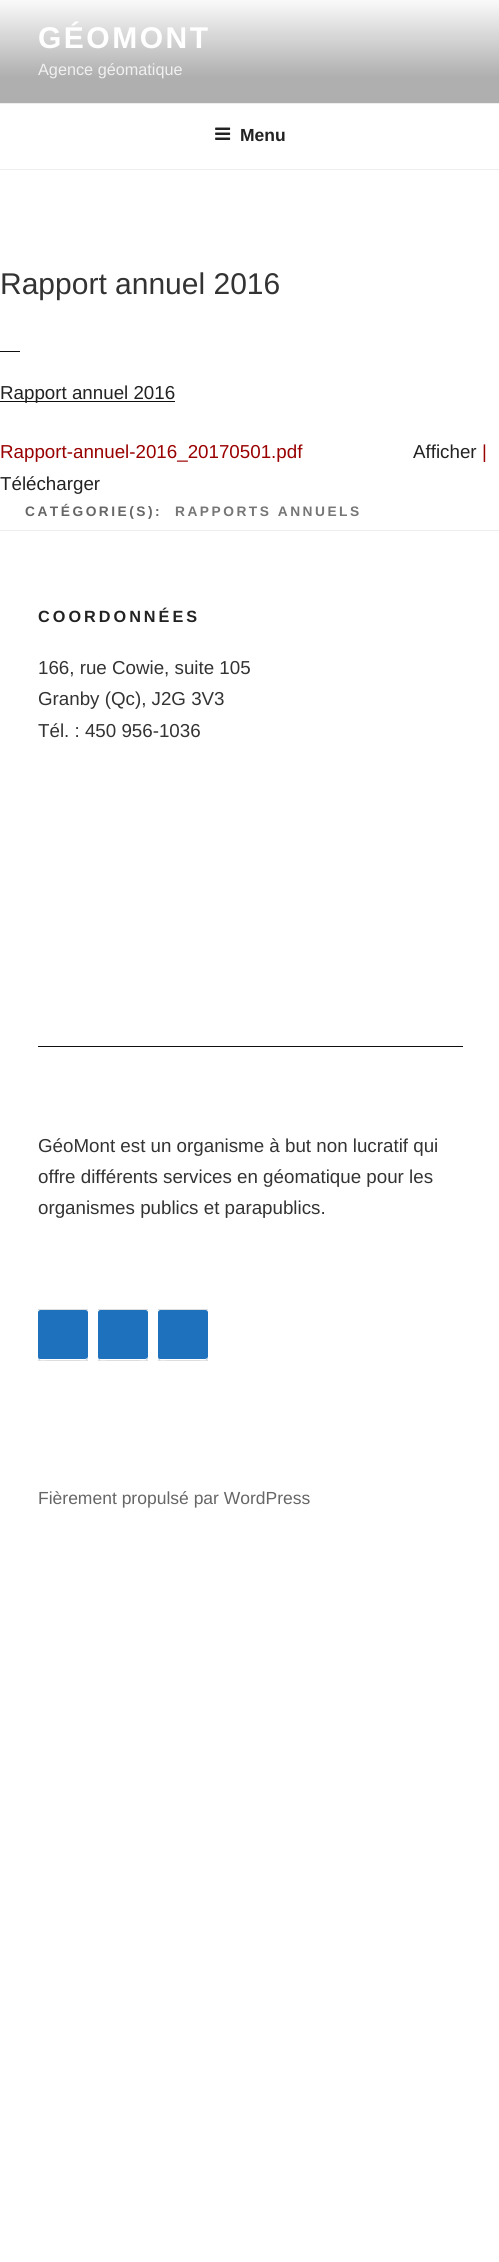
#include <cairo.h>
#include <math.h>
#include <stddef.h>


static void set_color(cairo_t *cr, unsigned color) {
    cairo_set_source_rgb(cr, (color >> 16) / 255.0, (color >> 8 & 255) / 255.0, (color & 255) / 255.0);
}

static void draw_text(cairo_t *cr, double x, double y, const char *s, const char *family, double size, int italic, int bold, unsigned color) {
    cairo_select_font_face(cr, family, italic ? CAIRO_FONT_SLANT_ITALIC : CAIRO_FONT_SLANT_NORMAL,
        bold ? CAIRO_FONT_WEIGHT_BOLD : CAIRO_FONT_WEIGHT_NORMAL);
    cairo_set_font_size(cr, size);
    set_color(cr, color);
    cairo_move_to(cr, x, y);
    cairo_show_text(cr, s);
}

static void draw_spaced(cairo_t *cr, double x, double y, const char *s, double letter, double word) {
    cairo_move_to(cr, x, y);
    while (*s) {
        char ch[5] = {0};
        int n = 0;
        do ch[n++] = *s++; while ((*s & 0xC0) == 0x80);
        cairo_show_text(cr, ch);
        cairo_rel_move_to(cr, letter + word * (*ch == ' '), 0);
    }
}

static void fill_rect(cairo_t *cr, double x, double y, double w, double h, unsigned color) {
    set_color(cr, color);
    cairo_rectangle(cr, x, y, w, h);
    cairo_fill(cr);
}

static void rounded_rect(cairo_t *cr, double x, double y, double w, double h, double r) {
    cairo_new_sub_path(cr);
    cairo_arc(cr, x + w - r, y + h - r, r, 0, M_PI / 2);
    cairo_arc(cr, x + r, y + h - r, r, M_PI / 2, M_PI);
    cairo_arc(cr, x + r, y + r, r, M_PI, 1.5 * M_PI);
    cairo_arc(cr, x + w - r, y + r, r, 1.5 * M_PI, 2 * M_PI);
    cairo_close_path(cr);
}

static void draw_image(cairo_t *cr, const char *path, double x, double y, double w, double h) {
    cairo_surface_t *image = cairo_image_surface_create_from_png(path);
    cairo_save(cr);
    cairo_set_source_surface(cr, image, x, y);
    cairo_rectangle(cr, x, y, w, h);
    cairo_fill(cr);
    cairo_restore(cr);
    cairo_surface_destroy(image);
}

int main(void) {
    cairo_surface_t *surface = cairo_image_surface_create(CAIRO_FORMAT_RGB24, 499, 2262);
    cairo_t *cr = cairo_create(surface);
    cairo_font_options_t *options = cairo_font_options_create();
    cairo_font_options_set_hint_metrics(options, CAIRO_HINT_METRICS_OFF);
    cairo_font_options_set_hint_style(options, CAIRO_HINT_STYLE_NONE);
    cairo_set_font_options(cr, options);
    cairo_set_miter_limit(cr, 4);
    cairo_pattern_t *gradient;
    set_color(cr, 0xFFFFFF);
    cairo_paint(cr);
    gradient = cairo_pattern_create_linear(250, 0, 250, 103);
    cairo_pattern_add_color_stop_rgba(gradient, 0, 0.98, 0.98, 0.98, 1);
    cairo_pattern_add_color_stop_rgba(gradient, 0.75, 0.686, 0.686, 0.686, 1);
    cairo_pattern_add_color_stop_rgba(gradient, 1, 0.686, 0.686, 0.686, 1);
    cairo_set_source(cr, gradient);
    cairo_pattern_destroy(gradient);
    cairo_rectangle(cr, 0, 0, 499, 103);
    cairo_fill(cr);
    cairo_select_font_face(cr, "Liberation Sans", CAIRO_FONT_SLANT_NORMAL, CAIRO_FONT_WEIGHT_BOLD);
    cairo_set_font_size(cr, 30);
    set_color(cr, 0xFFFFFF);
    draw_spaced(cr, 38, 48, "GÉOMONT", 2.5, 0);
    draw_text(cr, 38, 75, "Agence géomatique", "Liberation Sans", 16.25, 0, 0, 0xF0F0F0);
    fill_rect(cr, 0, 103, 499, 1, 0xEEEEEE);
    fill_rect(cr, 0, 169, 499, 1, 0xEEEEEE);
    draw_image(cr, "assets/img1.png", 215, 127, 16, 13);
    draw_text(cr, 240, 141, "Menu", "Liberation Sans", 17.5, 0, 1, 0x222222);
    draw_text(cr, 0, 294, "Rapport annuel 2016", "Liberation Sans", 30, 0, 0, 0x333333);
    fill_rect(cr, 0, 351, 20, 1, 0x0F0F0F);
    fill_rect(cr, 0, 401, 175, 1, 0x0F0F0F);
    draw_text(cr, 0, 399, "Rapport annuel 2016", "Liberation Sans", 18.75, 0, 0, 0x222222);
    draw_text(cr, 0, 458, "Rapport-annuel-2016_20170501.pdf", "Liberation Sans", 18.75, 0, 0, 0x990000);
    draw_text(cr, 413, 458, "Afficher", "Liberation Sans", 18.75, 0, 0, 0x222222);
    draw_text(cr, 482, 458, "|", "Liberation Sans", 18.75, 0, 0, 0x990000);
    draw_text(cr, 0, 490, "Télécharger", "Liberation Sans", 18.75, 0, 0, 0x222222);
    cairo_select_font_face(cr, "Liberation Sans", CAIRO_FONT_SLANT_NORMAL, CAIRO_FONT_WEIGHT_BOLD);
    cairo_set_font_size(cr, 13.75);
    set_color(cr, 0x666666);
    draw_spaced(cr, 25, 516, "CATÉGORIE(S):", 2.5, 0);
    set_color(cr, 0x767676);
    draw_spaced(cr, 175, 516, "RAPPORTS ANNUELS", 2.5, 0);
    fill_rect(cr, 0, 530, 499, 1, 0xEEEEEE);
    cairo_set_font_size(cr, 16.25);
    set_color(cr, 0x222222);
    draw_spaced(cr, 38, 622, "COORDONNÉES", 3, 0);
    draw_text(cr, 38, 674, "166, rue Cowie, suite 105", "Liberation Sans", 18.75, 0, 0, 0x333333);
    draw_text(cr, 38, 705, "Granby (Qc), J2G 3V3", "Liberation Sans", 18.75, 0, 0, 0x333333);
    draw_text(cr, 38, 737, "Tél. : 450 956-1036", "Liberation Sans", 18.75, 0, 0, 0x333333);
    fill_rect(cr, 38, 1046, 425, 1, 0x0F0F0F);
    draw_text(cr, 38, 1152, "GéoMont est un organisme à but non lucratif qui", "Liberation Sans", 18.75, 0, 0, 0x333333);
    draw_text(cr, 38, 1183, "offre différents services en géomatique pour les", "Liberation Sans", 18.75, 0, 0, 0x333333);
    draw_text(cr, 38, 1214, "organismes publics et parapublics.", "Liberation Sans", 18.75, 0, 0, 0x333333);
    fill_rect(cr, 38, 1309, 50, 1, 0xDDDDDD);
    fill_rect(cr, 38, 1360, 50, 1, 0xDDDDDD);
    set_color(cr, 0x1E72BD);
    rounded_rect(cr, 38, 1310, 50, 50, 2.5);
    cairo_fill(cr);
    set_color(cr, 0xFFFFFF);
    cairo_new_path(cr);
    cairo_move_to(cr, 38, 1356);
    cairo_curve_to(cr, 38, 1362, 43, 1360, 48, 1360);
    cairo_line_to(cr, 78, 1360);
    cairo_curve_to(cr, 83, 1360, 88, 1362, 88, 1356);
    cairo_curve_to(cr, 88, 1358, 86, 1359, 85, 1359);
    cairo_line_to(cr, 40, 1359);
    cairo_curve_to(cr, 39, 1359, 38, 1358, 38, 1356);
    cairo_close_path(cr);
    cairo_fill(cr);
    fill_rect(cr, 98, 1309, 50, 1, 0xDDDDDD);
    fill_rect(cr, 98, 1360, 50, 1, 0xDDDDDD);
    set_color(cr, 0x1E72BD);
    rounded_rect(cr, 98, 1310, 50, 50, 2.5);
    cairo_fill(cr);
    set_color(cr, 0xFFFFFF);
    cairo_new_path(cr);
    cairo_move_to(cr, 98, 1356);
    cairo_curve_to(cr, 98, 1362, 103, 1360, 108, 1360);
    cairo_line_to(cr, 138, 1360);
    cairo_curve_to(cr, 143, 1360, 148, 1362, 148, 1356);
    cairo_curve_to(cr, 148, 1358, 146, 1359, 145, 1359);
    cairo_line_to(cr, 100, 1359);
    cairo_curve_to(cr, 99, 1359, 98, 1358, 98, 1356);
    cairo_close_path(cr);
    cairo_fill(cr);
    fill_rect(cr, 158, 1309, 50, 1, 0xDDDDDD);
    fill_rect(cr, 158, 1360, 50, 1, 0xDDDDDD);
    set_color(cr, 0x1E72BD);
    rounded_rect(cr, 158, 1310, 50, 50, 2.5);
    cairo_fill(cr);
    set_color(cr, 0xFFFFFF);
    cairo_new_path(cr);
    cairo_move_to(cr, 158, 1356);
    cairo_curve_to(cr, 158, 1362, 163, 1360, 168, 1360);
    cairo_line_to(cr, 198, 1360);
    cairo_curve_to(cr, 203, 1360, 208, 1362, 208, 1356);
    cairo_curve_to(cr, 208, 1358, 206, 1359, 205, 1359);
    cairo_line_to(cr, 160, 1359);
    cairo_curve_to(cr, 159, 1359, 158, 1358, 158, 1356);
    cairo_close_path(cr);
    cairo_fill(cr);
    draw_text(cr, 38, 1504, "Fièrement propulsé par WordPress", "Liberation Sans", 17.5, 0, 0, 0x666666);
    cairo_surface_write_to_png(surface, "output.png");
    cairo_font_options_destroy(options);
    cairo_destroy(cr);
    cairo_surface_destroy(surface);
    return 0;
}
